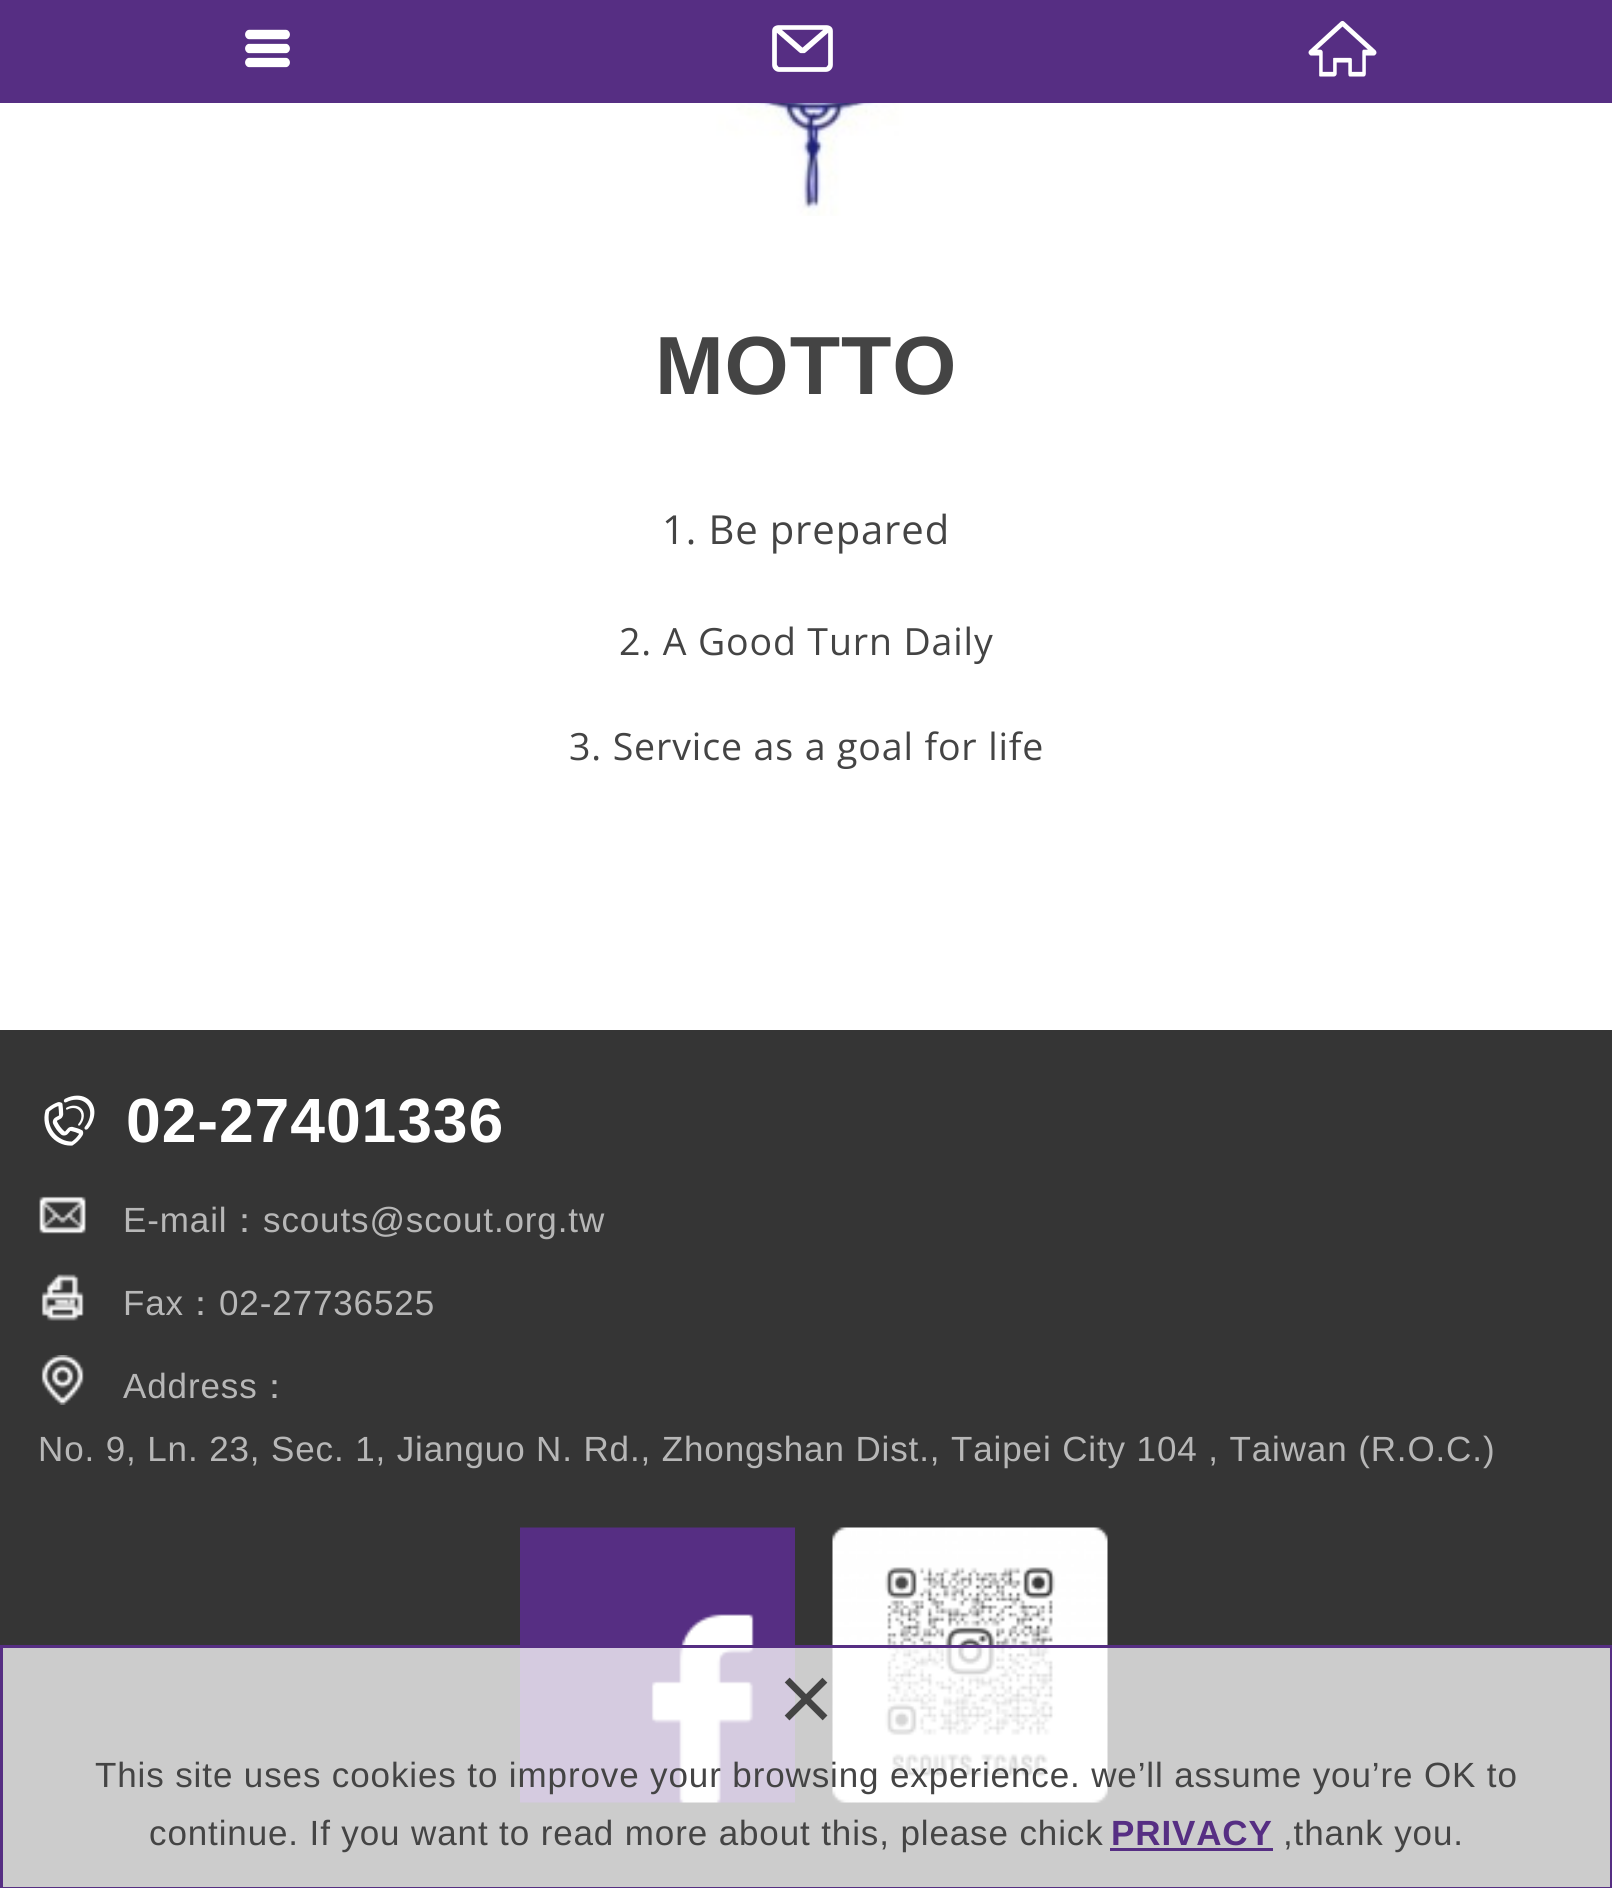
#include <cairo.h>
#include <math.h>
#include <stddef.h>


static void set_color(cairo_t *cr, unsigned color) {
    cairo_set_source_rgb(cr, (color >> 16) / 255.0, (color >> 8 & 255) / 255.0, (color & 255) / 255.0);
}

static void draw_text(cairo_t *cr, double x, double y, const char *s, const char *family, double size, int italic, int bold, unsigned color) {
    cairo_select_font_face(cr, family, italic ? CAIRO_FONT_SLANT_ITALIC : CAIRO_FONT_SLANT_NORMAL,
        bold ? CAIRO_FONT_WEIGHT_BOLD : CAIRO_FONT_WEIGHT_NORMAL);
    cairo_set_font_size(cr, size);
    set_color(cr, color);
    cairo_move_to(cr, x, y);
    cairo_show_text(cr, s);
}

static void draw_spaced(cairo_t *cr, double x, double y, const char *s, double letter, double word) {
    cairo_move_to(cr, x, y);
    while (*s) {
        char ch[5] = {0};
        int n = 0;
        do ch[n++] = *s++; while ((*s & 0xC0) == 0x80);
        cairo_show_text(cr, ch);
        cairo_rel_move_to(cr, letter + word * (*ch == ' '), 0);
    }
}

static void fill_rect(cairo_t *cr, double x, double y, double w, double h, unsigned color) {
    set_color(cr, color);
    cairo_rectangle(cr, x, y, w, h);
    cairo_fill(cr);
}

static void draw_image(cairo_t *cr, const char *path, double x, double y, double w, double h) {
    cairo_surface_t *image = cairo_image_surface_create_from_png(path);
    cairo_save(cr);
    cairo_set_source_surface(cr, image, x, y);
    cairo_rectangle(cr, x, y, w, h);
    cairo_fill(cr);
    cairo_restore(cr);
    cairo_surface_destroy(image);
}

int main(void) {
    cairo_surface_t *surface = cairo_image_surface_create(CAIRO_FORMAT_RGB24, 1612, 1888);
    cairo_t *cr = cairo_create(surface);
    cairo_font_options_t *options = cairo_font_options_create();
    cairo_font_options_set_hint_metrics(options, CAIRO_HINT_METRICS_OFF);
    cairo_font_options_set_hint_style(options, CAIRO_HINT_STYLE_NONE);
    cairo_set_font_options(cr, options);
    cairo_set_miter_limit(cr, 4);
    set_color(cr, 0xFFFFFF);
    cairo_paint(cr);
    fill_rect(cr, 0, 100, 1612, 3, 0x562E83);
    fill_rect(cr, 0, 0, 1612, 100, 0x562E83);
    draw_image(cr, "assets/img1.png", 245, 29, 45, 39);
    draw_image(cr, "assets/img2.png", 772, 25, 61, 47);
    draw_image(cr, "assets/img3.png", 1308, 20, 69, 57);
    draw_image(cr, "assets/img4.png", 683, 103, 267, 113);
    cairo_select_font_face(cr, "Liberation Sans", CAIRO_FONT_SLANT_NORMAL, CAIRO_FONT_WEIGHT_BOLD);
    cairo_set_font_size(cr, 82.5);
    set_color(cr, 0x444444);
    draw_spaced(cr, 655, 394, "MOTTO", 0.88, 0);
    cairo_select_font_face(cr, "Open Sans", CAIRO_FONT_SLANT_NORMAL, CAIRO_FONT_WEIGHT_NORMAL);
    cairo_set_font_size(cr, 40);
    draw_spaced(cr, 662, 544, "1. Be prepared", 0.88, 0);
    cairo_set_font_size(cr, 37.5);
    draw_spaced(cr, 619, 655, "2. A Good Turn Daily", 0.88, 0);
    draw_spaced(cr, 569, 760, "3. Service as a goal for life", 0.88, 0);
    fill_rect(cr, 0, 1030, 1612, 857, 0x353535);
    draw_image(cr, "assets/img5.png", 44, 1095, 51, 51);
    cairo_select_font_face(cr, "Liberation Sans", CAIRO_FONT_SLANT_NORMAL, CAIRO_FONT_WEIGHT_BOLD);
    cairo_set_font_size(cr, 62.5);
    set_color(cr, 0xFFFFFF);
    draw_spaced(cr, 126, 1142, "02-27401336", 0.88, 0);
    draw_image(cr, "assets/img6.png", 39, 1196, 47, 38);
    cairo_select_font_face(cr, "Liberation Sans", CAIRO_FONT_SLANT_NORMAL, CAIRO_FONT_WEIGHT_NORMAL);
    cairo_set_font_size(cr, 35);
    set_color(cr, 0xB7B7B7);
    draw_spaced(cr, 123, 1232, "E-mail", 0.88, 0);
    cairo_select_font_face(cr, "WenQuanYi Zen Hei Medium", CAIRO_FONT_SLANT_NORMAL, CAIRO_FONT_WEIGHT_NORMAL);
    draw_spaced(cr, 227, 1232, "：", 0.88, 0);
    cairo_select_font_face(cr, "Liberation Sans", CAIRO_FONT_SLANT_NORMAL, CAIRO_FONT_WEIGHT_NORMAL);
    draw_spaced(cr, 263, 1232, "scouts@scout.org.tw", 0.88, 0);
    draw_image(cr, "assets/img7.png", 41, 1274, 43, 47);
    draw_spaced(cr, 123, 1315, "Fax", 0.88, 0);
    cairo_select_font_face(cr, "WenQuanYi Zen Hei Medium", CAIRO_FONT_SLANT_NORMAL, CAIRO_FONT_WEIGHT_NORMAL);
    draw_spaced(cr, 183, 1315, "：", 0.88, 0);
    cairo_select_font_face(cr, "Liberation Sans", CAIRO_FONT_SLANT_NORMAL, CAIRO_FONT_WEIGHT_NORMAL);
    draw_spaced(cr, 219, 1315, "02-27736525", 0.88, 0);
    draw_image(cr, "assets/img8.png", 41, 1355, 43, 50);
    draw_spaced(cr, 123, 1398, "Address", 0.88, 0);
    cairo_select_font_face(cr, "WenQuanYi Zen Hei Medium", CAIRO_FONT_SLANT_NORMAL, CAIRO_FONT_WEIGHT_NORMAL);
    draw_spaced(cr, 257, 1398, "：", 0.88, 0);
    cairo_select_font_face(cr, "Liberation Sans", CAIRO_FONT_SLANT_NORMAL, CAIRO_FONT_WEIGHT_NORMAL);
    draw_spaced(cr, 38, 1461, "No. 9, Ln. 23, Sec. 1, Jianguo N. Rd., Zhongshan Dist., Taipei City 104 , Taiwan (R.O.C.)", 0.88, 0);
    draw_image(cr, "assets/img9.png", 520, 1527, 275, 276);
    draw_image(cr, "assets/img10.png", 832, 1527, 276, 276);
    cairo_set_source_rgba(cr, 1, 1, 1, 0.75);
    cairo_rectangle(cr, 1.5, 1646.5, 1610, 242);
    cairo_fill_preserve(cr);
    set_color(cr, 0x562E83);
    cairo_set_line_width(cr, 3);
    cairo_stroke(cr);
    draw_text(cr, 778, 1731, "×", "Liberation Sans", 96, 0, 0, 0x444444);
    cairo_set_font_size(cr, 35);
    draw_spaced(cr, 95, 1787, "This site uses cookies to improve your browsing experience. we’ll assume you’re OK to", 0.88, 0);
    draw_spaced(cr, 149, 1845, "continue. If you want to read more about this, please chick", 0.88, 0);
    cairo_select_font_face(cr, "Liberation Sans", CAIRO_FONT_SLANT_NORMAL, CAIRO_FONT_WEIGHT_BOLD);
    set_color(cr, 0x562E83);
    draw_spaced(cr, 1111, 1845, "PRIVACY", 0.88, 0);
    fill_rect(cr, 1110, 1848, 163, 3, 0x562E83);
    cairo_select_font_face(cr, "Liberation Sans", CAIRO_FONT_SLANT_NORMAL, CAIRO_FONT_WEIGHT_NORMAL);
    set_color(cr, 0x444444);
    draw_spaced(cr, 1283, 1845, ",thank you.", 0.88, 0);
    cairo_surface_write_to_png(surface, "output.png");
    cairo_font_options_destroy(options);
    cairo_destroy(cr);
    cairo_surface_destroy(surface);
    return 0;
}
